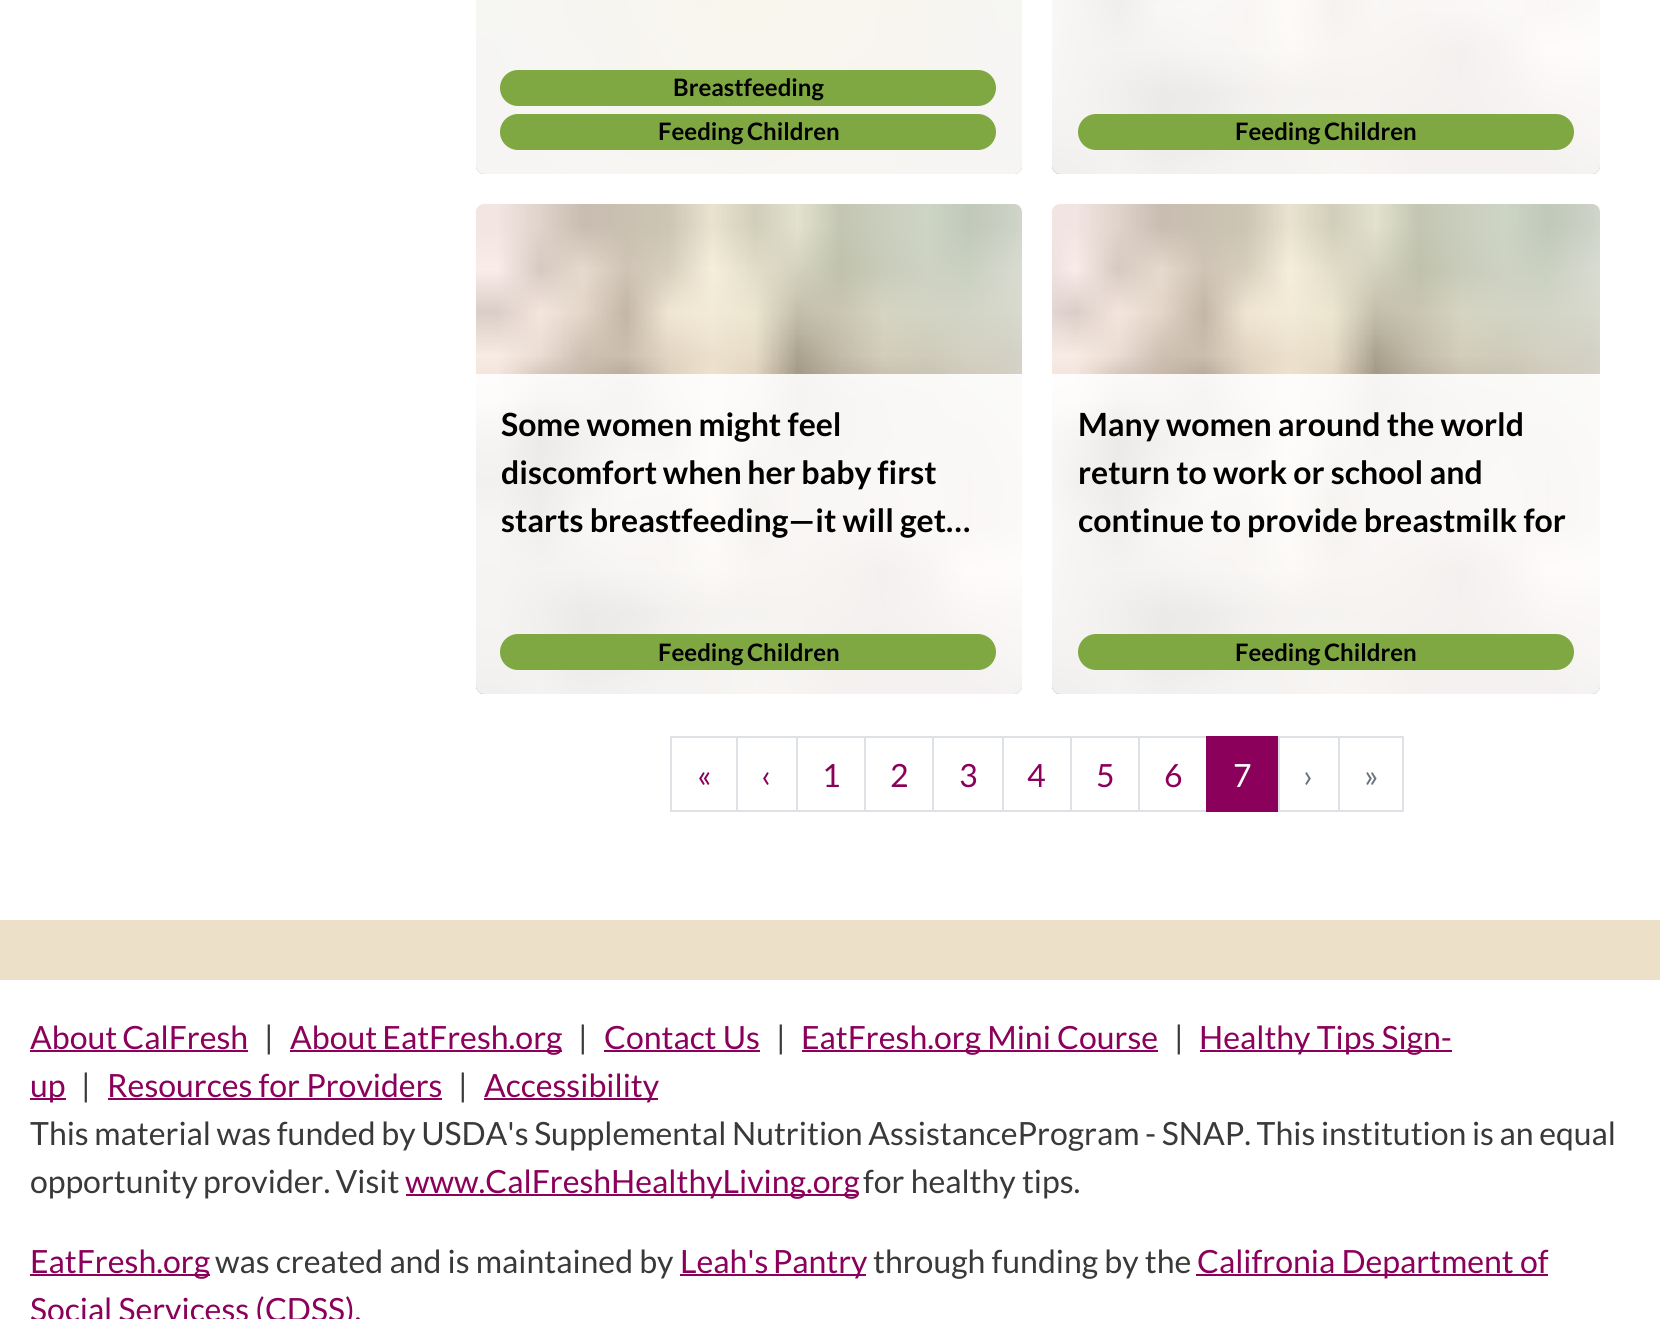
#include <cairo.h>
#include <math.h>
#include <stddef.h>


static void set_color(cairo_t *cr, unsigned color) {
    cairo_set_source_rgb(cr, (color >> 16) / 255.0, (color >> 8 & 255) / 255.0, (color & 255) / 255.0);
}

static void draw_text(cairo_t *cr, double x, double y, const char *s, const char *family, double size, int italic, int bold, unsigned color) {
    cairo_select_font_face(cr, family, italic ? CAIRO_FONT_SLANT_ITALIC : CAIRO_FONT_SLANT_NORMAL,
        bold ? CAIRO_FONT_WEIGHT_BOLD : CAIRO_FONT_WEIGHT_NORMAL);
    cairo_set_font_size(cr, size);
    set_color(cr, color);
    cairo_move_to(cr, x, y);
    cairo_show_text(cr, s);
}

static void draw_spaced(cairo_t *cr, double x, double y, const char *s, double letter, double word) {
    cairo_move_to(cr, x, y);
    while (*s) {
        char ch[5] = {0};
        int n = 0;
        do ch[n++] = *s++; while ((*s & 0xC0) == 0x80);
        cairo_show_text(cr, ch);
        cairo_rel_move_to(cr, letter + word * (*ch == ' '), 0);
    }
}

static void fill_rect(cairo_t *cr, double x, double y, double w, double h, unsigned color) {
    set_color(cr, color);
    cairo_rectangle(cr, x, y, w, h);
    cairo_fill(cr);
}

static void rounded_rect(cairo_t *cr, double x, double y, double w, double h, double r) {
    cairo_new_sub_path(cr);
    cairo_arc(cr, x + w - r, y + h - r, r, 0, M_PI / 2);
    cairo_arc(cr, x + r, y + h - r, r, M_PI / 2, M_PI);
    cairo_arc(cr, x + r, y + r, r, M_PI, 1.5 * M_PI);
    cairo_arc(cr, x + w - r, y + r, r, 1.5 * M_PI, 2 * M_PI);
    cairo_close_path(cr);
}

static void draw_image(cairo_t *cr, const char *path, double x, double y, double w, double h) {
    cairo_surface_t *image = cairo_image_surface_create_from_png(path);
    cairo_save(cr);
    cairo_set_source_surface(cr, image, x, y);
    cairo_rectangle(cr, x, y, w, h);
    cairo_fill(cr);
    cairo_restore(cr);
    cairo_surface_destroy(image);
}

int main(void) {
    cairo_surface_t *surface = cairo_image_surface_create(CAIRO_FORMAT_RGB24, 1660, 1319);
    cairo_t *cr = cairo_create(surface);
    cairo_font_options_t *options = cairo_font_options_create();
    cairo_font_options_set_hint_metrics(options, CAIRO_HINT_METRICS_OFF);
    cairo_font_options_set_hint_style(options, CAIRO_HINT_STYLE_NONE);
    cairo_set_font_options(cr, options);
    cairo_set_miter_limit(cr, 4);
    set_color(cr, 0xFFFFFF);
    cairo_paint(cr);
    draw_image(cr, "assets/img1.png", 476, 0, 546, 174);
    cairo_set_source_rgba(cr, 1, 1, 1, 0.9);
    cairo_new_path(cr);
    cairo_move_to(cr, 476, -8);
    cairo_line_to(cr, 1022, -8);
    cairo_line_to(cr, 1022, 166);
    cairo_curve_to(cr, 1022, 170.5, 1018.5, 174, 1014, 174);
    cairo_line_to(cr, 484, 174);
    cairo_curve_to(cr, 479.5, 174, 476, 170.5, 476, 166);
    cairo_close_path(cr);
    cairo_fill(cr);
    set_color(cr, 0x80A842);
    rounded_rect(cr, 500, 70, 496, 36, 18);
    cairo_fill(cr);
    draw_text(cr, 673, 96, "Breastfeeding", "Lato", 24, 0, 1, 0x000000);
    set_color(cr, 0x80A842);
    rounded_rect(cr, 500, 114, 496, 36, 18);
    cairo_fill(cr);
    set_color(cr, 0x000000);
    draw_spaced(cr, 658, 140, "Feeding Children", 0, -1);
    draw_image(cr, "assets/img2.png", 1052, 0, 548, 174);
    cairo_set_source_rgba(cr, 1, 1, 1, 0.9);
    cairo_new_path(cr);
    cairo_move_to(cr, 1052, -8);
    cairo_line_to(cr, 1600, -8);
    cairo_line_to(cr, 1600, 166);
    cairo_curve_to(cr, 1600, 170.5, 1596.5, 174, 1592, 174);
    cairo_line_to(cr, 1060, 174);
    cairo_curve_to(cr, 1055.5, 174, 1052, 170.5, 1052, 166);
    cairo_close_path(cr);
    cairo_fill(cr);
    set_color(cr, 0x80A842);
    rounded_rect(cr, 1078, 114, 496, 36, 18);
    cairo_fill(cr);
    set_color(cr, 0x000000);
    draw_spaced(cr, 1235, 140, "Feeding Children", 0, -1);
    draw_image(cr, "assets/img3.png", 476, 204, 546, 490);
    cairo_set_source_rgba(cr, 1, 1, 1, 0.9);
    cairo_new_path(cr);
    cairo_move_to(cr, 476, 374);
    cairo_line_to(cr, 1022, 374);
    cairo_line_to(cr, 1022, 686);
    cairo_curve_to(cr, 1022, 690.5, 1018.5, 694, 1014, 694);
    cairo_line_to(cr, 484, 694);
    cairo_curve_to(cr, 479.5, 694, 476, 690.5, 476, 686);
    cairo_close_path(cr);
    cairo_fill(cr);
    draw_text(cr, 501, 436, "Some women might feel", "Lato", 32, 0, 1, 0x000000);
    draw_spaced(cr, 501, 484, "discomfort when her baby first", 0, -0.5);
    draw_text(cr, 501, 532, "starts breastfeeding—it will get…", "Lato", 32, 0, 1, 0x000000);
    set_color(cr, 0x80A842);
    rounded_rect(cr, 500, 634, 496, 36, 18);
    cairo_fill(cr);
    cairo_set_font_size(cr, 24);
    set_color(cr, 0x000000);
    draw_spaced(cr, 658, 661, "Feeding Children", 0, -1);
    draw_image(cr, "assets/img4.png", 1052, 204, 548, 490);
    cairo_set_source_rgba(cr, 1, 1, 1, 0.9);
    cairo_new_path(cr);
    cairo_move_to(cr, 1052, 374);
    cairo_line_to(cr, 1600, 374);
    cairo_line_to(cr, 1600, 686);
    cairo_curve_to(cr, 1600, 690.5, 1596.5, 694, 1592, 694);
    cairo_line_to(cr, 1060, 694);
    cairo_curve_to(cr, 1055.5, 694, 1052, 690.5, 1052, 686);
    cairo_close_path(cr);
    cairo_fill(cr);
    draw_text(cr, 1078, 436, "Many women around the world", "Lato", 32, 0, 1, 0x000000);
    draw_text(cr, 1078, 484, "return to work or school and", "Lato", 32, 0, 1, 0x000000);
    draw_text(cr, 1078, 532, "continue to provide breastmilk for", "Lato", 32, 0, 1, 0x000000);
    set_color(cr, 0x80A842);
    rounded_rect(cr, 1078, 634, 496, 36, 18);
    cairo_fill(cr);
    cairo_set_font_size(cr, 24);
    set_color(cr, 0x000000);
    draw_spaced(cr, 1235, 661, "Feeding Children", 0, -1);
    cairo_rectangle(cr, 671, 737, 66, 74);
    set_color(cr, 0xDEE2E6);
    cairo_stroke(cr);
    draw_text(cr, 697, 787, "«", "Lato", 32, 0, 0, 0x8B005A);
    cairo_rectangle(cr, 737, 737, 60, 74);
    set_color(cr, 0xDEE2E6);
    cairo_stroke(cr);
    draw_text(cr, 761, 787, "‹", "Lato", 32, 0, 0, 0x8B005A);
    cairo_rectangle(cr, 797, 737, 68, 74);
    set_color(cr, 0xDEE2E6);
    cairo_stroke(cr);
    draw_text(cr, 822, 787, "1", "Lato", 32, 0, 0, 0x8B005A);
    cairo_rectangle(cr, 865, 737, 68, 74);
    set_color(cr, 0xDEE2E6);
    cairo_stroke(cr);
    draw_text(cr, 890, 787, "2", "Lato", 32, 0, 0, 0x8B005A);
    cairo_rectangle(cr, 933, 737, 70, 74);
    set_color(cr, 0xDEE2E6);
    cairo_stroke(cr);
    draw_text(cr, 959, 787, "3", "Lato", 32, 0, 0, 0x8B005A);
    cairo_rectangle(cr, 1003, 737, 68, 74);
    set_color(cr, 0xDEE2E6);
    cairo_stroke(cr);
    draw_text(cr, 1027, 787, "4", "Lato", 32, 0, 0, 0x8B005A);
    cairo_rectangle(cr, 1071, 737, 68, 74);
    set_color(cr, 0xDEE2E6);
    cairo_stroke(cr);
    draw_text(cr, 1096, 787, "5", "Lato", 32, 0, 0, 0x8B005A);
    cairo_rectangle(cr, 1139, 737, 68, 74);
    set_color(cr, 0xDEE2E6);
    cairo_stroke(cr);
    draw_text(cr, 1164, 787, "6", "Lato", 32, 0, 0, 0x8B005A);
    fill_rect(cr, 1206, 736, 72, 76, 0x8B005A);
    draw_text(cr, 1233, 787, "7", "Lato", 32, 0, 0, 0xFFFFFF);
    cairo_rectangle(cr, 1279, 737, 60, 74);
    set_color(cr, 0xDEE2E6);
    cairo_stroke(cr);
    draw_text(cr, 1303, 787, "›", "Lato", 32, 0, 0, 0x6C757D);
    cairo_rectangle(cr, 1339, 737, 64, 74);
    set_color(cr, 0xDEE2E6);
    cairo_stroke(cr);
    draw_text(cr, 1364, 787, "»", "Lato", 32, 0, 0, 0x6C757D);
    fill_rect(cr, 0, 920, 1660, 60, 0xECE1C8);
    set_color(cr, 0x8B005A);
    draw_spaced(cr, 30, 1049, "About CalFresh", 0, -1);
    fill_rect(cr, 30, 1050, 218, 2, 0x8B005A);
    draw_text(cr, 264, 1049, "|", "Lato", 32, 0, 0, 0x393939);
    fill_rect(cr, 290, 1050, 272, 2, 0x8B005A);
    draw_spaced(cr, 290, 1049, "About EatFresh.org", 0, -1);
    draw_text(cr, 578, 1049, "|", "Lato", 32, 0, 0, 0x393939);
    draw_text(cr, 604, 1049, "Contact Us", "Lato", 32, 0, 0, 0x8B005A);
    fill_rect(cr, 604, 1050, 156, 2, 0x8B005A);
    draw_text(cr, 776, 1049, "|", "Lato", 32, 0, 0, 0x393939);
    fill_rect(cr, 802, 1050, 356, 2, 0x8B005A);
    draw_text(cr, 801, 1049, "EatFresh.org Mini Course", "Lato", 32, 0, 0, 0x8B005A);
    draw_text(cr, 1174, 1049, "|", "Lato", 32, 0, 0, 0x393939);
    fill_rect(cr, 1200, 1050, 252, 2, 0x8B005A);
    draw_text(cr, 1199, 1049, "Healthy Tips Sign-", "Lato", 32, 0, 0, 0x8B005A);
    fill_rect(cr, 30, 1098, 36, 2, 0x8B005A);
    draw_text(cr, 30, 1097, "up", "Lato", 32, 0, 0, 0x8B005A);
    draw_text(cr, 81, 1097, "|", "Lato", 32, 0, 0, 0x393939);
    draw_text(cr, 107, 1097, "Resources for Providers", "Lato", 32, 0, 0, 0x8B005A);
    fill_rect(cr, 108, 1098, 334, 2, 0x8B005A);
    draw_text(cr, 458, 1097, "|", "Lato", 32, 0, 0, 0x393939);
    fill_rect(cr, 484, 1098, 174, 2, 0x8B005A);
    draw_text(cr, 484, 1097, "Accessibility", "Lato", 32, 0, 0, 0x8B005A);
    set_color(cr, 0x393939);
    draw_spaced(cr, 30, 1145, "This material was funded by USDA's Supplemental Nutrition AssistanceProgram - SNAP. This institution is an equal", 0, -0.6);
    draw_spaced(cr, 30, 1193, "opportunity provider. Visit", 0, -1);
    fill_rect(cr, 406, 1194, 450, 2, 0x8B005A);
    draw_text(cr, 405, 1193, "www.CalFreshHealthyLiving.org", "Lato", 32, 0, 0, 0x8B005A);
    draw_text(cr, 863, 1193, "for healthy tips.", "Lato", 32, 0, 0, 0x393939);
    fill_rect(cr, 30, 1274, 180, 2, 0x8B005A);
    draw_text(cr, 30, 1273, "EatFresh.org", "Lato", 32, 0, 0, 0x8B005A);
    draw_text(cr, 215, 1273, "was created and is maintained by", "Lato", 32, 0, 0, 0x393939);
    fill_rect(cr, 680, 1274, 186, 2, 0x8B005A);
    draw_spaced(cr, 680, 1273, "Leah's Pantry", 0, -2);
    draw_text(cr, 873, 1273, "through funding by the", "Lato", 32, 0, 0, 0x393939);
    fill_rect(cr, 1196, 1274, 352, 2, 0x8B005A);
    draw_text(cr, 1197, 1273, "Califronia Department of", "Lato", 32, 0, 0, 0x8B005A);
    draw_text(cr, 30, 1321, "Social Servicess (CDSS).", "Lato", 32, 0, 0, 0x8B005A);
    cairo_surface_write_to_png(surface, "output.png");
    cairo_font_options_destroy(options);
    cairo_destroy(cr);
    cairo_surface_destroy(surface);
    return 0;
}
